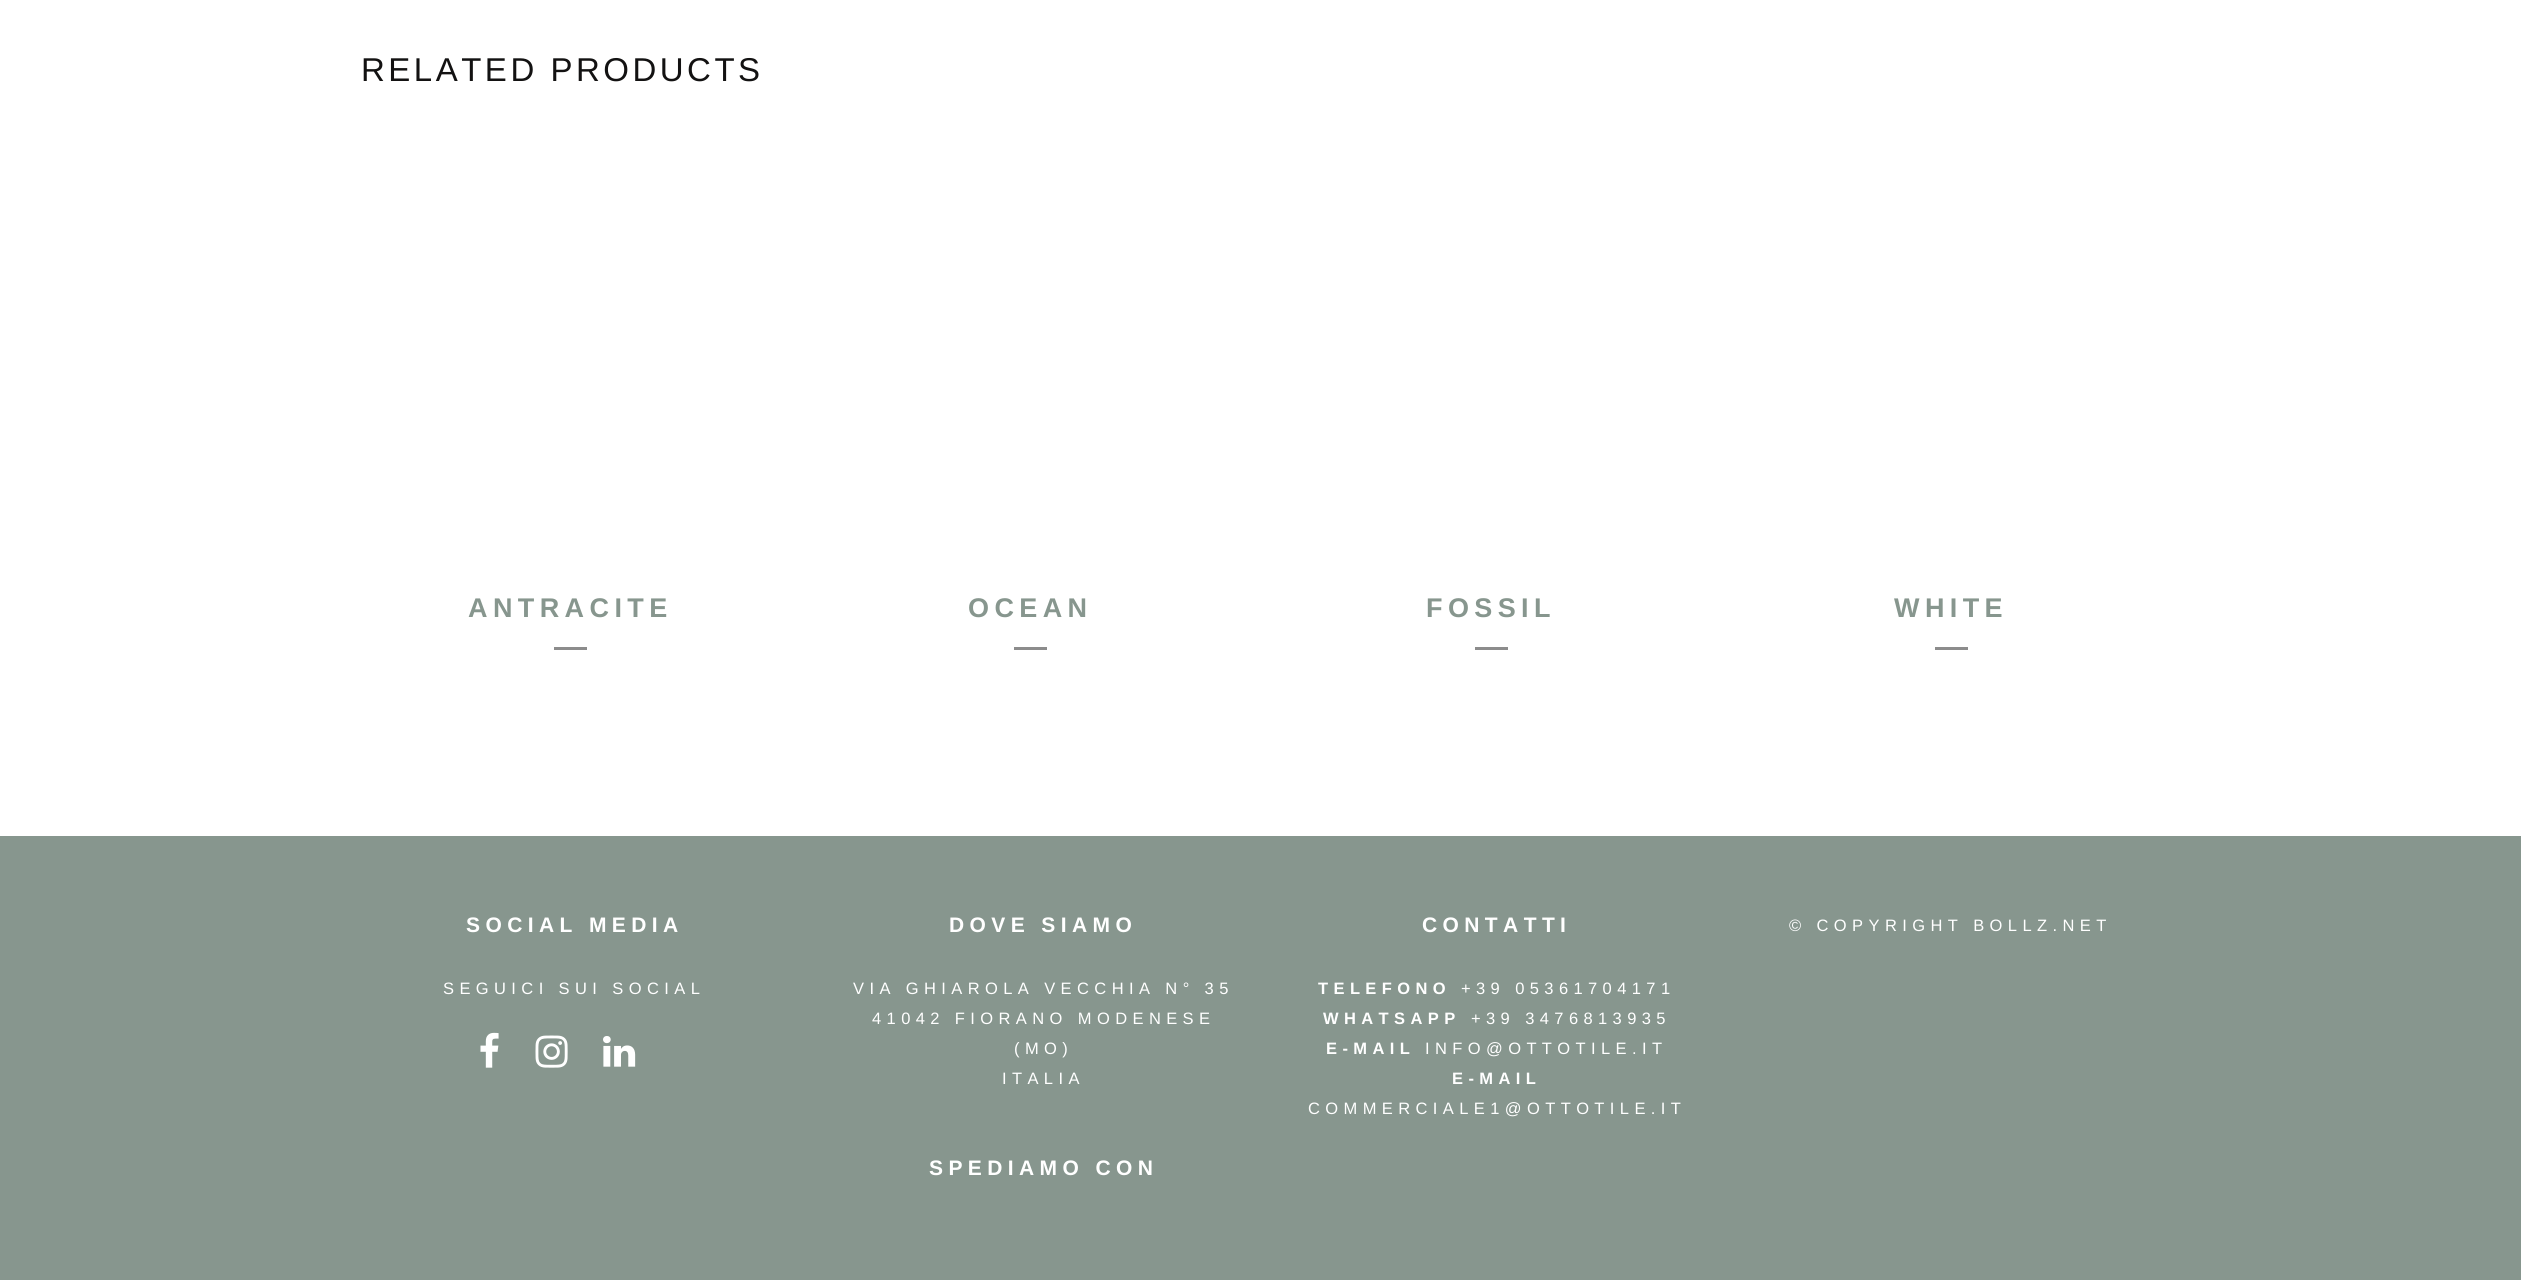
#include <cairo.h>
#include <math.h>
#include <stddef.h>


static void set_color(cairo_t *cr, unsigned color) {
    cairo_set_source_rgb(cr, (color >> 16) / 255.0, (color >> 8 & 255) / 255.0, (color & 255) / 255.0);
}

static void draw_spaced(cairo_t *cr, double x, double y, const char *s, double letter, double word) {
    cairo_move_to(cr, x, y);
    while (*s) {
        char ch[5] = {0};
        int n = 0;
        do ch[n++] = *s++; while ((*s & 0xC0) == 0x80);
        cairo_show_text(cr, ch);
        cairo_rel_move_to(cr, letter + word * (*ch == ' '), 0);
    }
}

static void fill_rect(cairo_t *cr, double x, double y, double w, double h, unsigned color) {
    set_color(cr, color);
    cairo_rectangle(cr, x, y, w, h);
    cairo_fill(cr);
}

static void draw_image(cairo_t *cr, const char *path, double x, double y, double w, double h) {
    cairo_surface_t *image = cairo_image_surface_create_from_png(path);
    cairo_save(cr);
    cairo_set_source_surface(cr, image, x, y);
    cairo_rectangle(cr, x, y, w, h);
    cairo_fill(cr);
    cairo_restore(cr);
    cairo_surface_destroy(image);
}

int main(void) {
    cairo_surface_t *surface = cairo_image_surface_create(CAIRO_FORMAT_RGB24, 2521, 1280);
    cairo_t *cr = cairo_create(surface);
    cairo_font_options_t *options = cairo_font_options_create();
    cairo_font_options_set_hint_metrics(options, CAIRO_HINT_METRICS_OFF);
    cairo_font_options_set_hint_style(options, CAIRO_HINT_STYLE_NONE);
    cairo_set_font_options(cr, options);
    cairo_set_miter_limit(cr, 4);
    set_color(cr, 0xFFFFFF);
    cairo_paint(cr);
    cairo_select_font_face(cr, "Liberation Sans", CAIRO_FONT_SLANT_NORMAL, CAIRO_FONT_WEIGHT_NORMAL);
    cairo_set_font_size(cr, 33);
    set_color(cr, 0x131212);
    draw_spaced(cr, 361, 81, "RELATED PRODUCTS", 3.5, 0);
    cairo_select_font_face(cr, "Liberation Sans", CAIRO_FONT_SLANT_NORMAL, CAIRO_FONT_WEIGHT_BOLD);
    cairo_set_font_size(cr, 27);
    set_color(cr, 0x87968E);
    draw_spaced(cr, 468, 617, "ANTRACITE", 5.4, 0);
    fill_rect(cr, 554, 647, 33, 3, 0x8C8C8C);
    set_color(cr, 0x87968E);
    draw_spaced(cr, 968, 617, "OCEAN", 5.4, 0);
    fill_rect(cr, 1014, 647, 33, 3, 0x8C8C8C);
    set_color(cr, 0x87968E);
    draw_spaced(cr, 1426, 617, "FOSSIL", 5.4, 0);
    fill_rect(cr, 1475, 647, 33, 3, 0x8C8C8C);
    set_color(cr, 0x87968E);
    draw_spaced(cr, 1894, 617, "WHITE", 5.4, 0);
    fill_rect(cr, 1935, 647, 33, 3, 0x8C8C8C);
    fill_rect(cr, 0, 836, 2521, 444, 0x87968E);
    cairo_set_font_size(cr, 21);
    set_color(cr, 0xFFFFFF);
    draw_spaced(cr, 466, 932, "SOCIAL MEDIA", 5.4, 0);
    cairo_select_font_face(cr, "Liberation Sans", CAIRO_FONT_SLANT_NORMAL, CAIRO_FONT_WEIGHT_NORMAL);
    cairo_set_font_size(cr, 16.5);
    draw_spaced(cr, 443, 994, "SEGUICI SUI SOCIAL", 5.4, 0);
    draw_image(cr, "assets/img1.png", 480, 1032, 19, 36);
    draw_image(cr, "assets/img2.png", 535, 1035, 33, 33);
    draw_image(cr, "assets/img3.png", 603, 1036, 33, 31);
    cairo_select_font_face(cr, "Liberation Sans", CAIRO_FONT_SLANT_NORMAL, CAIRO_FONT_WEIGHT_BOLD);
    cairo_set_font_size(cr, 21);
    draw_spaced(cr, 949, 932, "DOVE SIAMO", 5.4, 0);
    cairo_select_font_face(cr, "Liberation Sans", CAIRO_FONT_SLANT_NORMAL, CAIRO_FONT_WEIGHT_NORMAL);
    cairo_set_font_size(cr, 16.5);
    draw_spaced(cr, 853, 994, "VIA GHIAROLA VECCHIA N° 35", 5.4, 0);
    draw_spaced(cr, 872, 1024, "41042 FIORANO MODENESE", 5.4, 0);
    draw_spaced(cr, 1014, 1054, "(MO)", 5.4, 0);
    draw_spaced(cr, 1002, 1084, "ITALIA", 5.4, 0);
    cairo_select_font_face(cr, "Liberation Sans", CAIRO_FONT_SLANT_NORMAL, CAIRO_FONT_WEIGHT_BOLD);
    cairo_set_font_size(cr, 21);
    draw_spaced(cr, 929, 1175, "SPEDIAMO CON", 5.4, 0);
    draw_spaced(cr, 1422, 932, "CONTATTI", 5.4, 0);
    cairo_set_font_size(cr, 16.5);
    draw_spaced(cr, 1318, 994, "TELEFONO", 5.4, 0);
    cairo_select_font_face(cr, "Liberation Sans", CAIRO_FONT_SLANT_NORMAL, CAIRO_FONT_WEIGHT_NORMAL);
    draw_spaced(cr, 1461, 994, "+39 05361704171", 5.4, 0);
    cairo_select_font_face(cr, "Liberation Sans", CAIRO_FONT_SLANT_NORMAL, CAIRO_FONT_WEIGHT_BOLD);
    draw_spaced(cr, 1323, 1024, "WHATSAPP", 5.4, 0);
    cairo_select_font_face(cr, "Liberation Sans", CAIRO_FONT_SLANT_NORMAL, CAIRO_FONT_WEIGHT_NORMAL);
    draw_spaced(cr, 1471, 1024, "+39 3476813935", 5.4, 0);
    cairo_select_font_face(cr, "Liberation Sans", CAIRO_FONT_SLANT_NORMAL, CAIRO_FONT_WEIGHT_BOLD);
    draw_spaced(cr, 1326, 1054, "E-MAIL", 5.4, 0);
    cairo_select_font_face(cr, "Liberation Sans", CAIRO_FONT_SLANT_NORMAL, CAIRO_FONT_WEIGHT_NORMAL);
    draw_spaced(cr, 1425, 1054, "INFO@OTTOTILE.IT", 5.4, 0);
    cairo_select_font_face(cr, "Liberation Sans", CAIRO_FONT_SLANT_NORMAL, CAIRO_FONT_WEIGHT_BOLD);
    draw_spaced(cr, 1452, 1084, "E-MAIL", 5.4, 0);
    cairo_select_font_face(cr, "Liberation Sans", CAIRO_FONT_SLANT_NORMAL, CAIRO_FONT_WEIGHT_NORMAL);
    draw_spaced(cr, 1308, 1114, "COMMERCIALE1@OTTOTILE.IT", 5.4, 0);
    draw_spaced(cr, 1789, 931, "© COPYRIGHT BOLLZ.NET", 5.4, 0);
    cairo_surface_write_to_png(surface, "output.png");
    cairo_font_options_destroy(options);
    cairo_destroy(cr);
    cairo_surface_destroy(surface);
    return 0;
}
